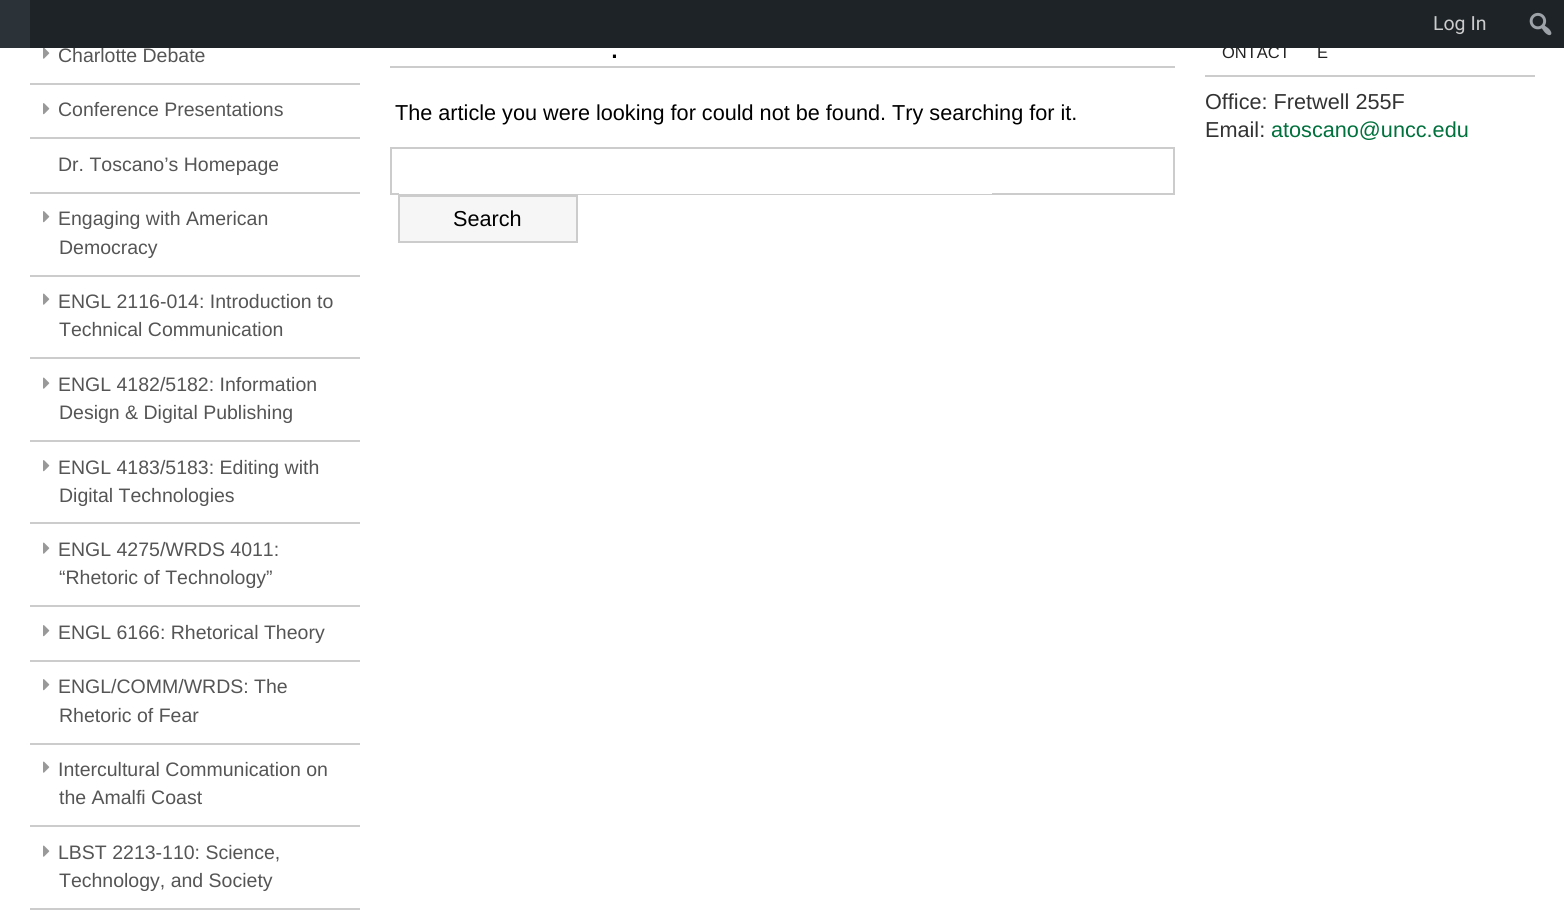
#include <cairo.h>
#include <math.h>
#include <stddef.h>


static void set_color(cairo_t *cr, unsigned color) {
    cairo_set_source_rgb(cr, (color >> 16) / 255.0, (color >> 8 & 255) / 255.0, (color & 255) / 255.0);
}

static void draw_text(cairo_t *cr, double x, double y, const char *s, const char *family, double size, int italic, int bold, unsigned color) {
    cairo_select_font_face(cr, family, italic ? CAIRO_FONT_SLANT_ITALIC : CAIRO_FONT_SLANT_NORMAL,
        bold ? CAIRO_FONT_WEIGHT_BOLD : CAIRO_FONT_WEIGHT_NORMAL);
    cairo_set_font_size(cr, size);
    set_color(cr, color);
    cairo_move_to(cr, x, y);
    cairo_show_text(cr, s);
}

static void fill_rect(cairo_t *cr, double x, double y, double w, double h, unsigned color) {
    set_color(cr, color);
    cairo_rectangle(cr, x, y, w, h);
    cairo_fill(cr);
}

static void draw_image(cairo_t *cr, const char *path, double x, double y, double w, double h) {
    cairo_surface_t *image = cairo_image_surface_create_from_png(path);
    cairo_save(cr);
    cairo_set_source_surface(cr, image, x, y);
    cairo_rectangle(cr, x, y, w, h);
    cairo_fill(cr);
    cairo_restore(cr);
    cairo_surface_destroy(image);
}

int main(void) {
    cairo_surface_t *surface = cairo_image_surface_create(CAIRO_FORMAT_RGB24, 1564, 914);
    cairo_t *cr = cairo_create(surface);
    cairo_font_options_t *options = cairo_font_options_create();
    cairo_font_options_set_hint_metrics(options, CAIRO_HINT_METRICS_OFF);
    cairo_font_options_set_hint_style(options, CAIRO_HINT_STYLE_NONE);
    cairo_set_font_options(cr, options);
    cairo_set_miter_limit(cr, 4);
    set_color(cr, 0xFFFFFF);
    cairo_paint(cr);
    draw_text(cr, 58, 62, "Charlotte Debate", "Liberation Sans", 19.5, 0, 0, 0x555555);
    draw_text(cr, 1222, 58, "ONTACT", "Liberation Sans", 16.5, 0, 0, 0x222222);
    draw_text(cr, 1317, 58, "E", "Liberation Sans", 16.5, 0, 0, 0x222222);
    fill_rect(cr, 30, 0, 1534, 48, 0x1D2327);
    fill_rect(cr, 0, 0, 30, 48, 0x2C3338);
    draw_text(cr, 1433, 30, "Log In", "Roboto", 19.5, 0, 0, 0xCCCCCC);
    draw_image(cr, "assets/img1.png", 1529, 12, 23, 24);
    draw_image(cr, "assets/img2.png", 43, 48, 7, 11);
    fill_rect(cr, 30, 83, 330, 2, 0xCCCCCC);
    draw_image(cr, "assets/img3.png", 43, 103, 7, 12);
    draw_text(cr, 58, 116, "Conference Presentations", "Liberation Sans", 19.5, 0, 0, 0x555555);
    fill_rect(cr, 30, 137, 330, 2, 0xCCCCCC);
    draw_text(cr, 58, 171, "Dr. Toscano’s Homepage", "Liberation Sans", 19.5, 0, 0, 0x555555);
    fill_rect(cr, 30, 192, 330, 2, 0xCCCCCC);
    draw_image(cr, "assets/img3.png", 43, 211, 7, 12);
    draw_text(cr, 58, 225, "Engaging with American", "Liberation Sans", 19.5, 0, 0, 0x555555);
    draw_text(cr, 59, 254, "Democracy", "Liberation Sans", 19.5, 0, 0, 0x555555);
    fill_rect(cr, 30, 275, 330, 2, 0xCCCCCC);
    draw_image(cr, "assets/img4.png", 43, 293, 7, 12);
    draw_text(cr, 58, 308, "ENGL 2116-014: Introduction to", "Liberation Sans", 19.5, 0, 0, 0x555555);
    draw_text(cr, 59, 336, "Technical Communication", "Liberation Sans", 19.5, 0, 0, 0x555555);
    fill_rect(cr, 30, 357, 330, 2, 0xCCCCCC);
    draw_image(cr, "assets/img4.png", 43, 377, 7, 12);
    draw_text(cr, 58, 391, "ENGL 4182/5182: Information", "Liberation Sans", 19.5, 0, 0, 0x555555);
    draw_text(cr, 59, 419, "Design & Digital Publishing", "Liberation Sans", 19.5, 0, 0, 0x555555);
    fill_rect(cr, 30, 440, 330, 2, 0xCCCCCC);
    draw_image(cr, "assets/img3.png", 43, 460, 7, 12);
    draw_text(cr, 58, 474, "ENGL 4183/5183: Editing with", "Liberation Sans", 19.5, 0, 0, 0x555555);
    draw_text(cr, 59, 502, "Digital Technologies", "Liberation Sans", 19.5, 0, 0, 0x555555);
    fill_rect(cr, 30, 522, 330, 2, 0xCCCCCC);
    draw_image(cr, "assets/img4.png", 43, 542, 7, 12);
    draw_text(cr, 58, 556, "ENGL 4275/WRDS 4011:", "Liberation Sans", 19.5, 0, 0, 0x555555);
    draw_text(cr, 59, 584, "“Rhetoric of Technology”", "Liberation Sans", 19.5, 0, 0, 0x555555);
    fill_rect(cr, 30, 605, 330, 2, 0xCCCCCC);
    draw_image(cr, "assets/img3.png", 43, 625, 7, 12);
    draw_text(cr, 58, 639, "ENGL 6166: Rhetorical Theory", "Liberation Sans", 19.5, 0, 0, 0x555555);
    fill_rect(cr, 30, 660, 330, 2, 0xCCCCCC);
    draw_image(cr, "assets/img3.png", 43, 679, 7, 12);
    draw_text(cr, 58, 693, "ENGL/COMM/WRDS: The", "Liberation Sans", 19.5, 0, 0, 0x555555);
    draw_text(cr, 59, 722, "Rhetoric of Fear", "Liberation Sans", 19.5, 0, 0, 0x555555);
    fill_rect(cr, 30, 743, 330, 2, 0xCCCCCC);
    draw_image(cr, "assets/img4.png", 43, 761, 7, 12);
    draw_text(cr, 58, 776, "Intercultural Communication on", "Liberation Sans", 19.5, 0, 0, 0x555555);
    draw_text(cr, 59, 804, "the Amalfi Coast", "Liberation Sans", 19.5, 0, 0, 0x555555);
    fill_rect(cr, 30, 825, 330, 2, 0xCCCCCC);
    draw_image(cr, "assets/img4.png", 43, 845, 7, 12);
    draw_text(cr, 58, 859, "LBST 2213-110: Science,", "Liberation Sans", 19.5, 0, 0, 0x555555);
    draw_text(cr, 59, 887, "Technology, and Society", "Liberation Sans", 19.5, 0, 0, 0x555555);
    fill_rect(cr, 30, 908, 330, 2, 0xCCCCCC);
    fill_rect(cr, 1205, 75, 330, 2, 0xCCCCCC);
    draw_text(cr, 1205, 109, "Office: Fretwell 255F", "Liberation Sans", 21.65, 0, 0, 0x333333);
    draw_text(cr, 1205, 137, "Email:", "Liberation Sans", 21.65, 0, 0, 0x333333);
    draw_text(cr, 1271, 137, "atoscano@uncc.edu", "Liberation Sans", 21.65, 0, 0, 0x00703C);
    fill_rect(cr, 390, 66, 785, 2, 0xCCCCCC);
    draw_text(cr, 610, 58, ".", "Liberation Sans", 32, 0, 0, 0x000000);
    draw_text(cr, 395, 120, "The article you were looking for could not be found. Try searching for it.", "Liberation Sans", 21.65, 0, 0, 0x000000);
    cairo_rectangle(cr, 391, 148, 783, 46);
    set_color(cr, 0xCCCCCC);
    cairo_stroke(cr);
    fill_rect(cr, 399, 193, 593, 1, 0xFFFFFF);
    set_color(cr, 0xF6F6F6);
    cairo_rectangle(cr, 399, 196, 178, 46);
    cairo_fill_preserve(cr);
    set_color(cr, 0xCCCCCC);
    cairo_stroke(cr);
    draw_text(cr, 453, 226, "Search", "Liberation Sans", 21.65, 0, 0, 0x000000);
    cairo_surface_write_to_png(surface, "output.png");
    cairo_font_options_destroy(options);
    cairo_destroy(cr);
    cairo_surface_destroy(surface);
    return 0;
}
